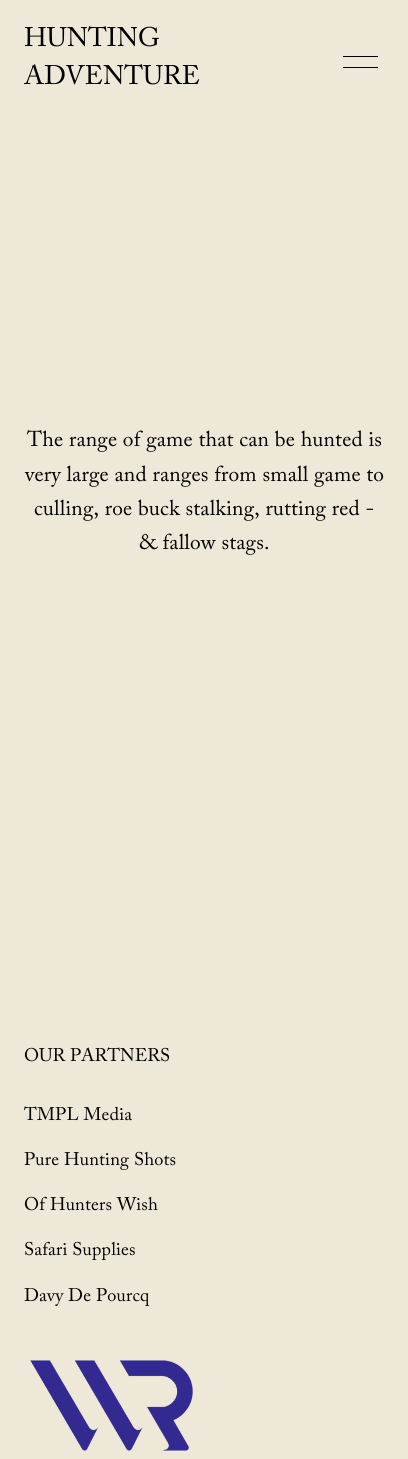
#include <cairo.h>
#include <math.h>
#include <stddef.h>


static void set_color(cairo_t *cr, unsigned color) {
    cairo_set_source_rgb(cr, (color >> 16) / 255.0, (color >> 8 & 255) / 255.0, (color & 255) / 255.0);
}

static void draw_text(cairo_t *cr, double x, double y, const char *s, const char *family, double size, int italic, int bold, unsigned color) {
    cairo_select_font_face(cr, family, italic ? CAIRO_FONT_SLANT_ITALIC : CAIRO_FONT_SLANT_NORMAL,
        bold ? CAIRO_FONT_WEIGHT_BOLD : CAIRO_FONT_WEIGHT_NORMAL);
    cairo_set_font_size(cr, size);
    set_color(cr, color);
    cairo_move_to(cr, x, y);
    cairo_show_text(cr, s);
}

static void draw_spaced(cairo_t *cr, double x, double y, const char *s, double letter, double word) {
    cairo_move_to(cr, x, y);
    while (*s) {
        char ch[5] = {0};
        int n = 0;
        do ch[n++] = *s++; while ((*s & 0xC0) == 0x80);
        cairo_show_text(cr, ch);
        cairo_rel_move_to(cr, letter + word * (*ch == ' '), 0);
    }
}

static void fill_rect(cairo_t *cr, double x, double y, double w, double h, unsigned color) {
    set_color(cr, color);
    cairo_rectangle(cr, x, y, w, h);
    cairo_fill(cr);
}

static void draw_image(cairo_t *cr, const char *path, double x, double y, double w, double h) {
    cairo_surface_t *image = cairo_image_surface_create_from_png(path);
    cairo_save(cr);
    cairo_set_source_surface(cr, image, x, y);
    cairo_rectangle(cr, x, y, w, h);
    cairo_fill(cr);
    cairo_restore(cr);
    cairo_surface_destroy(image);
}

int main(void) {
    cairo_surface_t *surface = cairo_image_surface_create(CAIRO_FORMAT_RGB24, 408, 1459);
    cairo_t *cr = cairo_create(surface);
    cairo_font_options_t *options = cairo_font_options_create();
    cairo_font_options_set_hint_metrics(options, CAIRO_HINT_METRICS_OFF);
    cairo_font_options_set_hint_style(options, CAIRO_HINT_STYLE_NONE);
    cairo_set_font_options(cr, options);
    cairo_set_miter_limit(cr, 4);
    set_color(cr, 0xEEE8D9);
    cairo_paint(cr);
    draw_text(cr, 24, 46, "HUNTING", "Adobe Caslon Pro", 26.75, 0, 0, 0x000000);
    draw_text(cr, 24, 84, "ADVENTURE", "Adobe Caslon Pro", 26.75, 0, 0, 0x000000);
    fill_rect(cr, 343, 56, 35, 1, 0x000000);
    fill_rect(cr, 343, 67, 35, 1, 0x000000);
    cairo_set_font_size(cr, 21.4);
    draw_spaced(cr, 27, 446, "The range of game that can be hunted is", 0.2, 0);
    draw_spaced(cr, 25, 481, "very large and ranges from small game to", 0.2, 0);
    draw_spaced(cr, 34, 515, "culling, roe buck stalking, rutting red -", 0.2, 0);
    draw_spaced(cr, 139, 549, "& fallow stags.", 0.2, 0);
    draw_text(cr, 24, 1061, "OUR PARTNERS", "Adobe Caslon Pro", 18.25, 0, 0, 0x000000);
    draw_spaced(cr, 24, 1120, "TMPL Media", 0.2, 0);
    draw_spaced(cr, 24, 1165, "Pure Hunting Shots", 0.2, 0);
    draw_spaced(cr, 24, 1210, "Of Hunters Wish", 0.2, 0);
    draw_spaced(cr, 24, 1255, "Safari Supplies", 0.2, 0);
    draw_spaced(cr, 24, 1301, "Davy De Pourcq", 0.2, 0);
    draw_image(cr, "assets/img1.png", 30, 1360, 163, 91);
    cairo_surface_write_to_png(surface, "output.png");
    cairo_font_options_destroy(options);
    cairo_destroy(cr);
    cairo_surface_destroy(surface);
    return 0;
}
